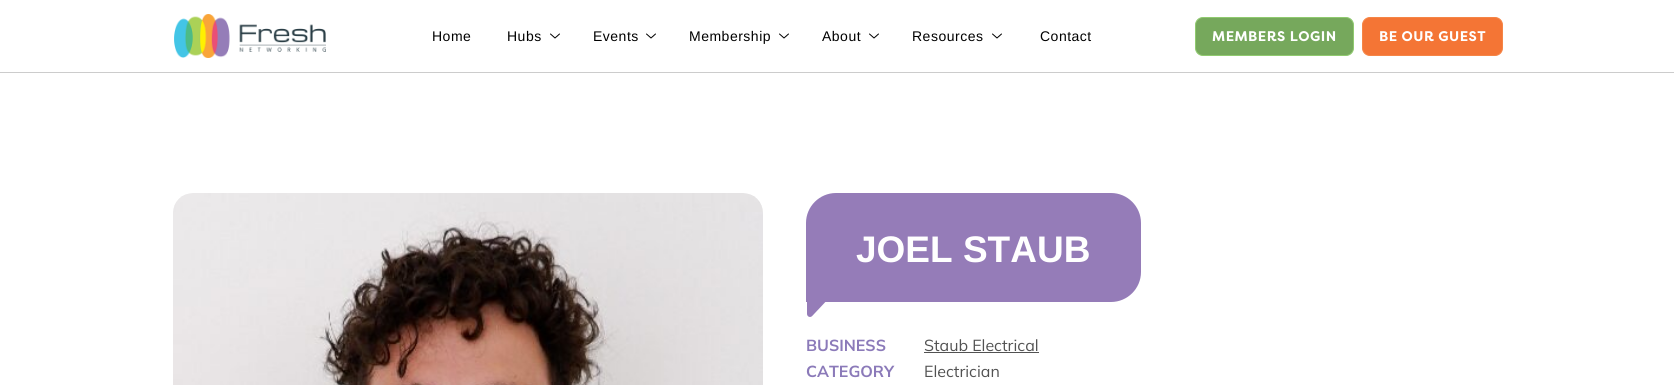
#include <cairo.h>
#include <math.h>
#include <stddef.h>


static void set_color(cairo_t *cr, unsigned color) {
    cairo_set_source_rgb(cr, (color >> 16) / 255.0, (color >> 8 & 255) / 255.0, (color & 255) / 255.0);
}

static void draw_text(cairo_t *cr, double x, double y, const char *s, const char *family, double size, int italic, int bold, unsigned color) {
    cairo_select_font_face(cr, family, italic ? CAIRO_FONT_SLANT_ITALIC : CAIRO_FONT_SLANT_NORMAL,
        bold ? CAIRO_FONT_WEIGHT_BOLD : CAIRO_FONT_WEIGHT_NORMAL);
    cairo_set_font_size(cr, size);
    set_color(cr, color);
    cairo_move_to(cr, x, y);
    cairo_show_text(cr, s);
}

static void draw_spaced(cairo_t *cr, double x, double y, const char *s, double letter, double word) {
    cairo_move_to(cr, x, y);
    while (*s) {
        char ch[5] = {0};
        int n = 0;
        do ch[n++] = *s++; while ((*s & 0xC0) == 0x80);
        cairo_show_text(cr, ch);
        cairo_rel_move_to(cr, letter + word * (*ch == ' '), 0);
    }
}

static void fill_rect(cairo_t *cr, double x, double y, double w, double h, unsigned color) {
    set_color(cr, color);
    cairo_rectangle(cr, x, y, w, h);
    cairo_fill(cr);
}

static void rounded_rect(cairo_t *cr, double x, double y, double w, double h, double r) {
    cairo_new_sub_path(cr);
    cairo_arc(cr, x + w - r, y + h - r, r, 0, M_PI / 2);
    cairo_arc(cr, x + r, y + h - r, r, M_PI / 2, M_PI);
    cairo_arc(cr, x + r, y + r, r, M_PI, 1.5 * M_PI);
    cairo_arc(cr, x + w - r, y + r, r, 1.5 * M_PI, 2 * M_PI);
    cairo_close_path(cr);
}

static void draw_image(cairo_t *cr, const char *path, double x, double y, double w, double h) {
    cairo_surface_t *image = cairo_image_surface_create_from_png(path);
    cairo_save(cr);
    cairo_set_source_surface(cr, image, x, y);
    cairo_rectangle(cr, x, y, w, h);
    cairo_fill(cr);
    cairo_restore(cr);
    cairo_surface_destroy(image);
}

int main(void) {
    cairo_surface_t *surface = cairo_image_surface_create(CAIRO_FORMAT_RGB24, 1674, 385);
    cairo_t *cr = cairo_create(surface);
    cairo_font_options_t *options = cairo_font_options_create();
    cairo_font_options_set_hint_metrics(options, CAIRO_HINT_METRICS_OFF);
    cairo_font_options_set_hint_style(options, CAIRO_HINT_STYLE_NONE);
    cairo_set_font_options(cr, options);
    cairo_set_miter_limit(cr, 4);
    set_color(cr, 0xFFFFFF);
    cairo_paint(cr);
    fill_rect(cr, 0, 72, 1674, 1, 0xCCCCCC);
    draw_image(cr, "assets/img1.png", 174, 14, 152, 44);
    cairo_select_font_face(cr, "Liberation Sans", CAIRO_FONT_SLANT_NORMAL, CAIRO_FONT_WEIGHT_NORMAL);
    cairo_set_font_size(cr, 14);
    set_color(cr, 0x000000);
    draw_spaced(cr, 432, 41, "Home", 0.5, 0);
    draw_spaced(cr, 507, 41, "Hubs", 0.5, 0);
    cairo_new_path(cr);
    cairo_move_to(cr, 559.5, 34);
    cairo_line_to(cr, 555, 38);
    cairo_line_to(cr, 550.5, 34);
    cairo_set_line_width(cr, 1);
    cairo_set_line_cap(cr, CAIRO_LINE_CAP_ROUND);
    cairo_set_line_join(cr, CAIRO_LINE_JOIN_ROUND);
    cairo_stroke(cr);
    draw_spaced(cr, 593, 41, "Events", 0.5, 0);
    cairo_new_path(cr);
    cairo_move_to(cr, 655.5, 34);
    cairo_line_to(cr, 651, 38);
    cairo_line_to(cr, 646.5, 34);
    cairo_stroke(cr);
    draw_spaced(cr, 689, 41, "Membership", 0.5, 0);
    cairo_new_path(cr);
    cairo_move_to(cr, 788.5, 34);
    cairo_line_to(cr, 784, 38);
    cairo_line_to(cr, 779.5, 34);
    cairo_stroke(cr);
    draw_spaced(cr, 822, 41, "About", 0.5, 0);
    cairo_new_path(cr);
    cairo_move_to(cr, 878.5, 34);
    cairo_line_to(cr, 874, 38);
    cairo_line_to(cr, 869.5, 34);
    cairo_stroke(cr);
    draw_spaced(cr, 912, 41, "Resources", 0.5, 0);
    cairo_new_path(cr);
    cairo_move_to(cr, 1001.5, 34);
    cairo_line_to(cr, 997, 38);
    cairo_line_to(cr, 992.5, 34);
    cairo_stroke(cr);
    draw_spaced(cr, 1040, 41, "Contact", 0.5, 0);
    set_color(cr, 0x76A85C);
    rounded_rect(cr, 1195.5, 17.5, 158, 38, 7.5);
    cairo_fill_preserve(cr);
    set_color(cr, 0x90CA6F);
    cairo_set_line_cap(cr, CAIRO_LINE_CAP_BUTT);
    cairo_set_line_join(cr, CAIRO_LINE_JOIN_MITER);
    cairo_stroke(cr);
    cairo_select_font_face(cr, "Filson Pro", CAIRO_FONT_SLANT_NORMAL, CAIRO_FONT_WEIGHT_BOLD);
    set_color(cr, 0xFFFFFF);
    draw_spaced(cr, 1212, 41, "MEMBERS LOGIN", 0.5, 0);
    set_color(cr, 0xF47535);
    rounded_rect(cr, 1362.5, 17.5, 140, 38, 7.5);
    cairo_fill_preserve(cr);
    set_color(cr, 0xF58546);
    cairo_stroke(cr);
    set_color(cr, 0xFFFFFF);
    draw_spaced(cr, 1379, 41, "BE OUR GUEST", 0.5, 0);
    draw_image(cr, "assets/img2.png", 173, 193, 590, 192);
    set_color(cr, 0x957CB8);
    cairo_new_path(cr);
    cairo_move_to(cr, 836, 193);
    cairo_line_to(cr, 1111, 193);
    cairo_curve_to(cr, 1127.5, 193, 1141, 206.5, 1141, 223);
    cairo_line_to(cr, 1141, 272);
    cairo_curve_to(cr, 1141, 288.5, 1127.5, 302, 1111, 302);
    cairo_line_to(cr, 806, 302);
    cairo_line_to(cr, 806, 223);
    cairo_curve_to(cr, 806, 206.5, 819.5, 193, 836, 193);
    cairo_close_path(cr);
    cairo_fill(cr);
    draw_text(cr, 856, 262, "JOEL STAUB", "Liberation Sans", 37, 0, 1, 0xFFFFFF);
    draw_image(cr, "assets/img3.png", 807, 302, 19, 15);
    draw_text(cr, 806, 351, "BUSINESS", "Mulish ExtraLight", 16, 0, 0, 0x8B7AB9);
    draw_text(cr, 924, 351, "Staub Electrical", "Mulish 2 ExtraLight", 16, 0, 0, 0x525252);
    fill_rect(cr, 924, 352, 115, 1, 0x525252);
    draw_text(cr, 806, 377, "CATEGORY", "Mulish ExtraLight", 16, 0, 0, 0x8B7AB9);
    draw_text(cr, 924, 377, "Electrician", "Mulish 2 ExtraLight", 16, 0, 0, 0x525252);
    cairo_surface_write_to_png(surface, "output.png");
    cairo_font_options_destroy(options);
    cairo_destroy(cr);
    cairo_surface_destroy(surface);
    return 0;
}
